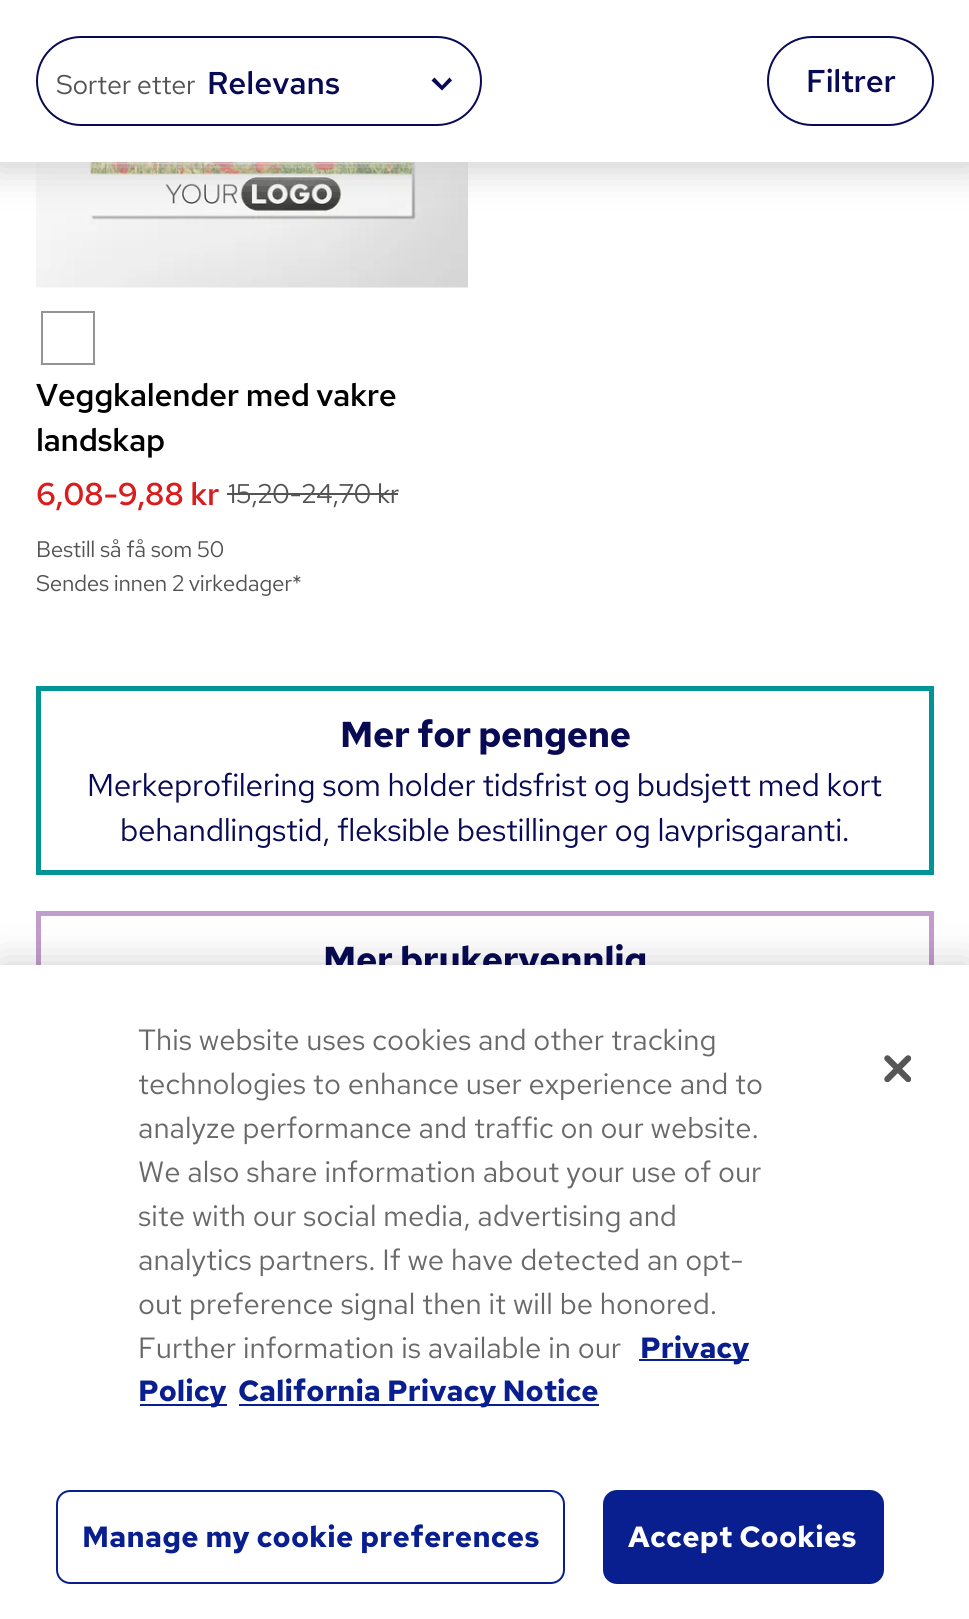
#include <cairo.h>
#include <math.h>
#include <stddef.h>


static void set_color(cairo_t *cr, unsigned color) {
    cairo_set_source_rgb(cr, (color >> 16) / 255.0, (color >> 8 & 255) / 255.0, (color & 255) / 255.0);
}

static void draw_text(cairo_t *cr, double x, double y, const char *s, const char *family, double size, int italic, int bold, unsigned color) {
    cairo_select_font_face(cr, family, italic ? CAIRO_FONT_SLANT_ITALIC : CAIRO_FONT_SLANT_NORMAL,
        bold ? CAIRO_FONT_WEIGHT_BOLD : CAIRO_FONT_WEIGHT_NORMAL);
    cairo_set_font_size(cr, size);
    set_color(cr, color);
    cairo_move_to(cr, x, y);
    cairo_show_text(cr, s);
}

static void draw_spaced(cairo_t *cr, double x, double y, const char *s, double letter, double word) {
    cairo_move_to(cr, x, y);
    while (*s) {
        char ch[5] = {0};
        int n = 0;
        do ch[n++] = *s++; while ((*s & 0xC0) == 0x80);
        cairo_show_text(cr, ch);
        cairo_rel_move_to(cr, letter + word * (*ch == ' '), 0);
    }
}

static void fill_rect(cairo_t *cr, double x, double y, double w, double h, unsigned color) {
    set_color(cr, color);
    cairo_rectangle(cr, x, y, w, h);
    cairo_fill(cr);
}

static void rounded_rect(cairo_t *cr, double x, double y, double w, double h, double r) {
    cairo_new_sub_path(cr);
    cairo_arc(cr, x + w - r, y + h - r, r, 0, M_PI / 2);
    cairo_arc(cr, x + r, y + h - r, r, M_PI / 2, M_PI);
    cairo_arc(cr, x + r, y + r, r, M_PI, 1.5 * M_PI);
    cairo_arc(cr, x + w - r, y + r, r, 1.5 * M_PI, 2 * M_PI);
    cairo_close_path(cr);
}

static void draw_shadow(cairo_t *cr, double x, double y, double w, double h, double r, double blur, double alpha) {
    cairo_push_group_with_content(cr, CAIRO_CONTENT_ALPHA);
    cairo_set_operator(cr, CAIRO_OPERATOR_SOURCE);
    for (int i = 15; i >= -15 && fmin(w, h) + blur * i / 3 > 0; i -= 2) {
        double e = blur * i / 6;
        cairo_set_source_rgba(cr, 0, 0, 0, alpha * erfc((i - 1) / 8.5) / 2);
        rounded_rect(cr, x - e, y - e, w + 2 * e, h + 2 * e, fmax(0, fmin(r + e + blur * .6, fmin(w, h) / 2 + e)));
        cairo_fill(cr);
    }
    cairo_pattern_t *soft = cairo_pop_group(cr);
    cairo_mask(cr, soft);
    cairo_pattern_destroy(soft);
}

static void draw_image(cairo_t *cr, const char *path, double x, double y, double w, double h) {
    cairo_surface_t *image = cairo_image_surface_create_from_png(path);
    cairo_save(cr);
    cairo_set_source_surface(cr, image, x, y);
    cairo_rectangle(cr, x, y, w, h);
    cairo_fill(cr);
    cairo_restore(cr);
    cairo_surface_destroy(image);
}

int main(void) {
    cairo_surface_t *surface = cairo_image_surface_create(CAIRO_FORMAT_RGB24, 969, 1619);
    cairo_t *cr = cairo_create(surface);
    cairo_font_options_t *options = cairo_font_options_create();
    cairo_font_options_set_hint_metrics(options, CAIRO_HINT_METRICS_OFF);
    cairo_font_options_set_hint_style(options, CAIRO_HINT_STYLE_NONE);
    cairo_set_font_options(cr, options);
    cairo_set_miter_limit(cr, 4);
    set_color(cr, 0xFFFFFF);
    cairo_paint(cr);
    draw_image(cr, "assets/img1.png", 36, 162, 432, 126);
    set_color(cr, 0xD3D3D3);
    draw_shadow(cr, -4, 0, 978, 171, 0, 18, 1);
    fill_rect(cr, 0, 0, 969, 162, 0xFFFFFF);
    rounded_rect(cr, 37, 37, 444, 88, 44);
    set_color(cr, 0x080A54);
    cairo_stroke(cr);
    cairo_select_font_face(cr, "Red Hat Text", CAIRO_FONT_SLANT_NORMAL, CAIRO_FONT_WEIGHT_NORMAL);
    cairo_set_font_size(cr, 27);
    set_color(cr, 0x535353);
    draw_spaced(cr, 56, 94, "Sorter etter", -0.32, 0);
    set_color(cr, 0x080A54);
    cairo_new_path(cr);
    cairo_move_to(cr, 442, 90.5);
    cairo_line_to(cr, 431.5, 80.5);
    cairo_line_to(cr, 434.5, 77.5);
    cairo_line_to(cr, 442, 85.5);
    cairo_line_to(cr, 449.5, 77.5);
    cairo_line_to(cr, 452, 80.5);
    cairo_close_path(cr);
    cairo_fill(cr);
    draw_text(cr, 207, 94, "Relevans", "Red Hat Text Medium", 31.5, 0, 0, 0x080A54);
    rounded_rect(cr, 768, 37, 165, 88, 44);
    cairo_stroke(cr);
    draw_spaced(cr, 806, 92, "Filtrer", -0.32, 0);
    cairo_rectangle(cr, 42, 312, 52, 52);
    set_color(cr, 0x949494);
    cairo_stroke(cr);
    set_color(cr, 0x000000);
    draw_spaced(cr, 36, 406, "Veggkalender med vakre", -0.32, 0);
    draw_spaced(cr, 36, 451, "landskap", -0.32, 0);
    set_color(cr, 0xDA1C1C);
    draw_spaced(cr, 36, 505, "6,08-9,88 kr", -0.32, 0);
    cairo_select_font_face(cr, "Red Hat Text", CAIRO_FONT_SLANT_NORMAL, CAIRO_FONT_WEIGHT_NORMAL);
    cairo_set_font_size(cr, 27);
    set_color(cr, 0x535353);
    draw_spaced(cr, 228, 503, "15,20-24,70 kr", -0.32, 0);
    fill_rect(cr, 227, 493, 171, 2, 0x535353);
    cairo_set_font_size(cr, 22.5);
    draw_spaced(cr, 36, 557, "Bestill så få som 50", -0.32, 0);
    draw_spaced(cr, 36, 591, "Sendes innen 2 virkedager*", -0.32, 0);
    cairo_rectangle(cr, 38.5, 688.5, 893, 184);
    set_color(cr, 0x019497);
    cairo_set_line_width(cr, 5);
    cairo_stroke(cr);
    cairo_select_font_face(cr, "Red Hat Text", CAIRO_FONT_SLANT_NORMAL, CAIRO_FONT_WEIGHT_BOLD);
    cairo_set_font_size(cr, 36);
    set_color(cr, 0x080A54);
    draw_spaced(cr, 340, 747, "Mer for pengene", -0.32, 0);
    cairo_select_font_face(cr, "Red Hat Text", CAIRO_FONT_SLANT_NORMAL, CAIRO_FONT_WEIGHT_NORMAL);
    cairo_set_font_size(cr, 31.5);
    draw_spaced(cr, 87, 796, "Merkeprofilering som holder tidsfrist og budsjett med kort", -0.32, 0);
    draw_spaced(cr, 120, 841, "behandlingstid, fleksible bestillinger og lavprisgaranti.", -0.32, 0);
    cairo_rectangle(cr, 38.5, 913.5, 893, 184);
    set_color(cr, 0xC29CCD);
    cairo_stroke(cr);
    cairo_select_font_face(cr, "Red Hat Text", CAIRO_FONT_SLANT_NORMAL, CAIRO_FONT_WEIGHT_BOLD);
    cairo_set_font_size(cr, 36);
    set_color(cr, 0x080A54);
    draw_spaced(cr, 323, 972, "Mer brukervennlig", -0.32, 0);
    set_color(cr, 0x000000);
    draw_shadow(cr, 0, 965, 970, 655, 0, 20, 0.2);
    fill_rect(cr, 0, 965, 969, 654, 0xFFFFFF);
    draw_text(cr, 138, 1050, "This website uses cookies and other tracking", "Red Hat Text", 29.25, 0, 0, 0x696969);
    draw_text(cr, 138, 1094, "technologies to enhance user experience and to", "Red Hat Text", 29.25, 0, 0, 0x696969);
    draw_text(cr, 138, 1138, "analyze performance and traffic on our website.", "Red Hat Text", 29.25, 0, 0, 0x696969);
    draw_text(cr, 138, 1182, "We also share information about your use of our", "Red Hat Text", 29.25, 0, 0, 0x696969);
    draw_text(cr, 138, 1226, "site with our social media, advertising and", "Red Hat Text", 29.25, 0, 0, 0x696969);
    draw_text(cr, 138, 1270, "analytics partners. If we have detected an opt-", "Red Hat Text", 29.25, 0, 0, 0x696969);
    draw_text(cr, 138, 1314, "out preference signal then it will be honored.", "Red Hat Text", 29.25, 0, 0, 0x696969);
    draw_text(cr, 138, 1358, "Further information is available in our", "Red Hat Text", 29.25, 0, 0, 0x696969);
    fill_rect(cr, 639, 1359, 110, 2, 0x0A1F8F);
    draw_text(cr, 640, 1358, "Privacy", "Red Hat Text", 29.25, 0, 1, 0x0A1F8F);
    fill_rect(cr, 140, 1404, 87, 2, 0x0A1F8F);
    draw_text(cr, 138, 1401, "Policy", "Red Hat Text", 29.25, 0, 1, 0x0A1F8F);
    fill_rect(cr, 239, 1404, 360, 2, 0x0A1F8F);
    draw_text(cr, 238, 1401, "California Privacy Notice", "Red Hat Text", 29.25, 0, 1, 0x0A1F8F);
    rounded_rect(cr, 57, 1491, 507, 92, 13);
    cairo_set_line_width(cr, 2);
    cairo_stroke(cr);
    draw_spaced(cr, 82, 1547, "Manage my cookie preferences", 0.3, 0);
    rounded_rect(cr, 604, 1491, 279, 92, 13);
    cairo_fill_preserve(cr);
    cairo_stroke(cr);
    set_color(cr, 0xFFFFFF);
    draw_spaced(cr, 628, 1547, "Accept Cookies", 0.3, 0);
    draw_image(cr, "assets/img2.png", 884, 1055, 27, 27);
    cairo_surface_write_to_png(surface, "output.png");
    cairo_font_options_destroy(options);
    cairo_destroy(cr);
    cairo_surface_destroy(surface);
    return 0;
}
